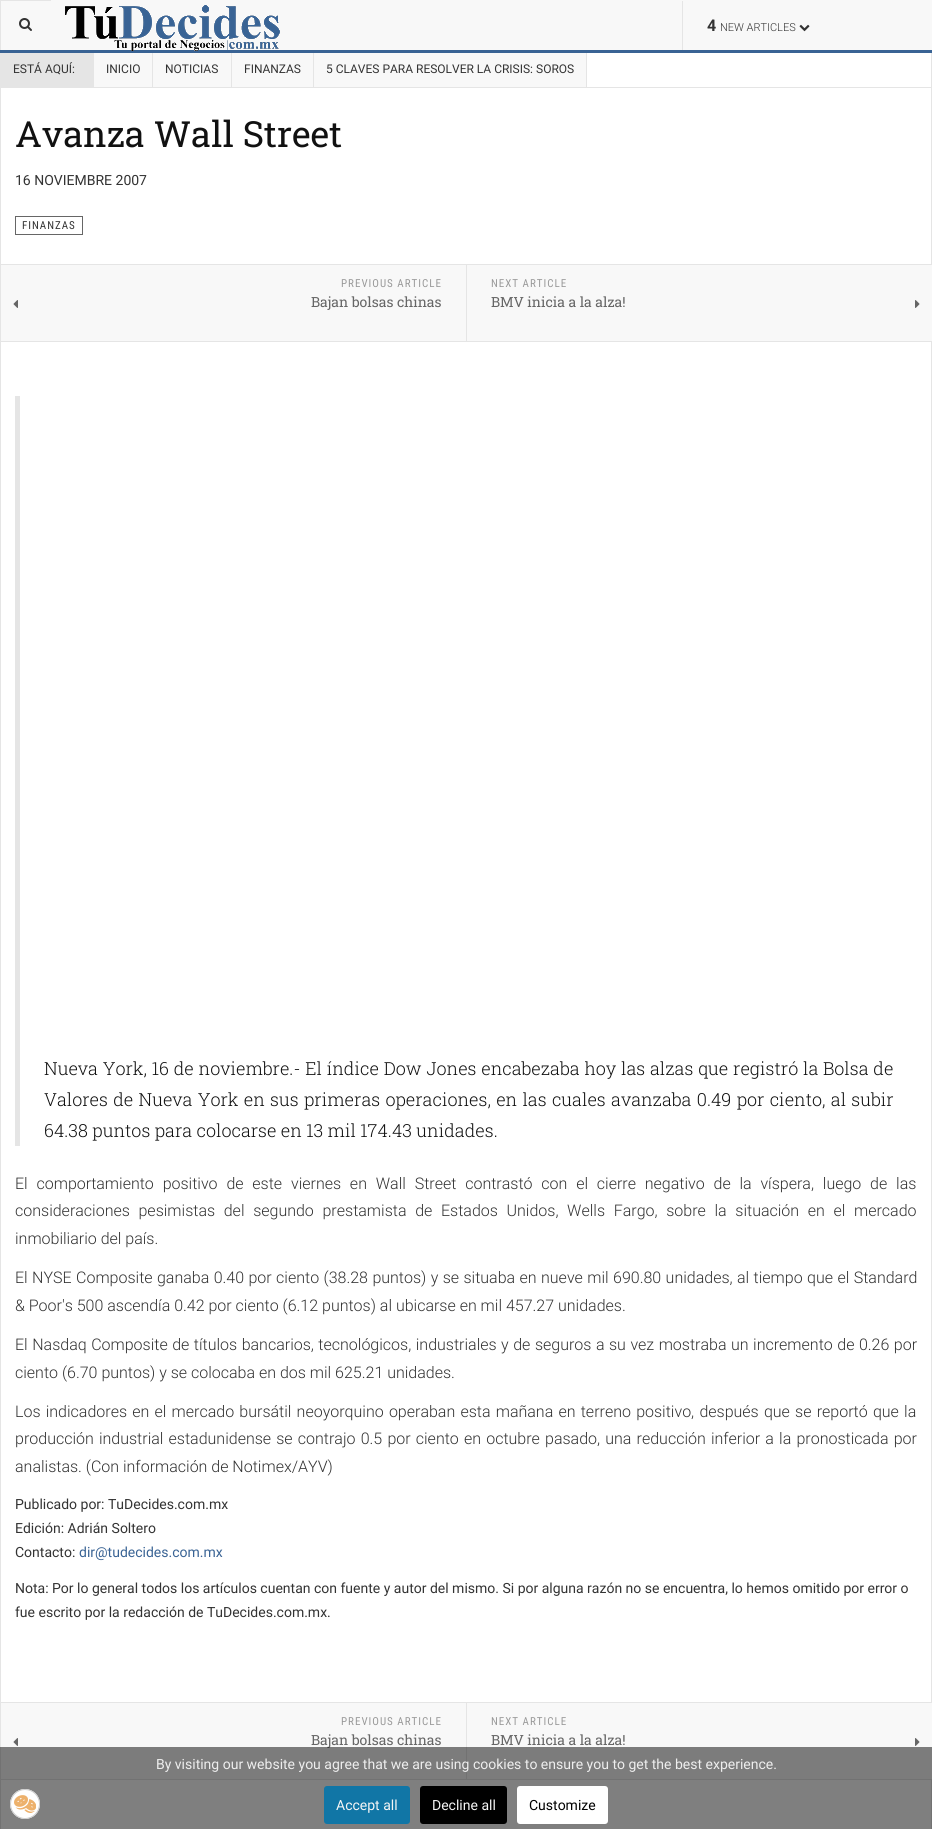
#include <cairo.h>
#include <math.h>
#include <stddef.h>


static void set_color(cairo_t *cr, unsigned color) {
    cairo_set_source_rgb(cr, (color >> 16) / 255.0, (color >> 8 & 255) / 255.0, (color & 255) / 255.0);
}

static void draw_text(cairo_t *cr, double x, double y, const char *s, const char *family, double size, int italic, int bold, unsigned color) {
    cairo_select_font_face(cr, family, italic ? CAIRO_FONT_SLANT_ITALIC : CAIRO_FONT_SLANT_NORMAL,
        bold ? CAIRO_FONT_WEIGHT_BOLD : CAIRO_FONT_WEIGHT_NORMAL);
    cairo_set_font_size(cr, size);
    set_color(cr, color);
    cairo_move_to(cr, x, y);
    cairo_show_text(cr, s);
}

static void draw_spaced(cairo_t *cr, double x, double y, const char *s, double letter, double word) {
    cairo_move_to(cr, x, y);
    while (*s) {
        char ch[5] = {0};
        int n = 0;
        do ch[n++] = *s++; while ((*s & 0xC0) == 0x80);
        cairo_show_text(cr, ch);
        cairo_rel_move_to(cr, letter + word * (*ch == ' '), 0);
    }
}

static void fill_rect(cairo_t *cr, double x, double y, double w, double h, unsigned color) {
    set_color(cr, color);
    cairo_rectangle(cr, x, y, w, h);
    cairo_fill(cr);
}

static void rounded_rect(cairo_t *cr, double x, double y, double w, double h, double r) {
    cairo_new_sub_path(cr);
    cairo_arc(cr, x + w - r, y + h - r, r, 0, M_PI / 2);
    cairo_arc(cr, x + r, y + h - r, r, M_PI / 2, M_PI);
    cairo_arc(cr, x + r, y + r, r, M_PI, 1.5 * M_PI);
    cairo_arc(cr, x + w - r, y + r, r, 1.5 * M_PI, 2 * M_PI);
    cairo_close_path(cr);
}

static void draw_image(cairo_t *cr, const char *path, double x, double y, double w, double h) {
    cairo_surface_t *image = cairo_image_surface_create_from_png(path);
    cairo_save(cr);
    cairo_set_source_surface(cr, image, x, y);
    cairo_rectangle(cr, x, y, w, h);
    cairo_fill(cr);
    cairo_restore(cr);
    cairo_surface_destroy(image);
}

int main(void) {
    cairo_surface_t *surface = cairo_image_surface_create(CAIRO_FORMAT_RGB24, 932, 1829);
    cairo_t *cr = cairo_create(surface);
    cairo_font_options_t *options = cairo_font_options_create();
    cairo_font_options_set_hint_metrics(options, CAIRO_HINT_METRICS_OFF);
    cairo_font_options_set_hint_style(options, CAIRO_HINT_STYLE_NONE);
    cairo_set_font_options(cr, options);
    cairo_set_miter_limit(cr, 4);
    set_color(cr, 0xFFFFFF);
    cairo_paint(cr);
    fill_rect(cr, 1, 1, 50, 49, 0xF8F8F8);
    fill_rect(cr, 1, 0, 50, 1, 0xE5E5E5);
    draw_image(cr, "assets/img1.png", 19, 18, 13, 13);
    fill_rect(cr, 51, 0, 881, 50, 0xF8F8F8);
    fill_rect(cr, 931, 50, 1, 37, 0xE5E5E5);
    fill_rect(cr, 0, 0, 1, 87, 0xE5E5E5);
    fill_rect(cr, 152, 51, 1, 36, 0xE5E5E5);
    fill_rect(cr, 231, 51, 1, 36, 0xE5E5E5);
    fill_rect(cr, 313, 51, 1, 36, 0xE5E5E5);
    fill_rect(cr, 586, 51, 1, 36, 0xE5E5E5);
    fill_rect(cr, 0, 50, 932, 3, 0x396394);
    draw_image(cr, "assets/img2.png", 65, 5, 215, 46);
    fill_rect(cr, 682, 1, 1, 49, 0xE5E5E5);
    draw_text(cr, 707, 31, "4", "Roboto", 16, 0, 1, 0x333333);
    draw_text(cr, 720, 31, "NEW ARTICLES", "Roboto Light", 11, 0, 0, 0x333333);
    draw_image(cr, "assets/img3.png", 799, 24, 11, 8);
    fill_rect(cr, 1, 53, 93, 34, 0xE5E5E5);
    draw_text(cr, 13, 73, "ESTÁ AQUÍ:", "Roboto", 12, 0, 0, 0x333333);
    fill_rect(cr, 94, 53, 58, 34, 0xF8F8F8);
    draw_text(cr, 106, 73, "INICIO", "Roboto", 12, 0, 0, 0x333333);
    fill_rect(cr, 153, 53, 78, 34, 0xF8F8F8);
    draw_text(cr, 165, 73, "NOTICIAS", "Roboto", 12, 0, 0, 0x333333);
    fill_rect(cr, 232, 53, 81, 34, 0xF8F8F8);
    draw_text(cr, 244, 73, "FINANZAS", "Roboto", 12, 0, 0, 0x333333);
    fill_rect(cr, 314, 53, 272, 34, 0xF8F8F8);
    draw_text(cr, 326, 73, "5 CLAVES PARA RESOLVER LA CRISIS: SOROS", "Roboto", 12, 0, 0, 0x333333);
    cairo_rectangle(cr, 0.5, 87.5, 931, 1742);
    set_color(cr, 0xE5E5E5);
    cairo_set_line_width(cr, 1);
    cairo_stroke(cr);
    draw_text(cr, 15, 147, "Avanza Wall Street", "Roboto Slab", 36, 0, 0, 0x111111);
    draw_text(cr, 15, 185, "16 NOVIEMBRE 2007", "Roboto", 14, 0, 0, 0x333333);
    cairo_rectangle(cr, 15.5, 216.5, 67, 18);
    set_color(cr, 0x666666);
    cairo_stroke(cr);
    cairo_select_font_face(cr, "Roboto Condensed", CAIRO_FONT_SLANT_NORMAL, CAIRO_FONT_WEIGHT_NORMAL);
    cairo_set_font_size(cr, 11);
    set_color(cr, 0x333333);
    draw_spaced(cr, 22, 229, "FINANZAS", 1, 0);
    fill_rect(cr, 0, 264, 932, 1, 0xE5E5E5);
    fill_rect(cr, 0, 341, 932, 1, 0xE5E5E5);
    fill_rect(cr, 466, 265, 1, 76, 0xE5E5E5);
    fill_rect(cr, 1, 265, 465, 76, 0xF8F8F8);
    set_color(cr, 0x999999);
    draw_spaced(cr, 341, 287, "PREVIOUS ARTICLE", 1, 0);
    draw_image(cr, "assets/img4.png", 13, 300, 5, 8);
    draw_text(cr, 311, 307, "Bajan bolsas chinas", "Roboto Slab", 14, 0, 0, 0x666666);
    fill_rect(cr, 467, 265, 465, 76, 0xF8F8F8);
    cairo_select_font_face(cr, "Roboto Condensed", CAIRO_FONT_SLANT_NORMAL, CAIRO_FONT_WEIGHT_NORMAL);
    cairo_set_font_size(cr, 11);
    set_color(cr, 0x999999);
    draw_spaced(cr, 491, 287, "NEXT ARTICLE", 1, 0);
    draw_text(cr, 491, 307, "BMV inicia a la alza!", "Roboto Slab", 14, 0, 0, 0x666666);
    draw_image(cr, "assets/img5.png", 915, 300, 5, 8);
    fill_rect(cr, 15, 396, 5, 750, 0xE5E5E5);
    cairo_select_font_face(cr, "Roboto Slab Light", CAIRO_FONT_SLANT_NORMAL, CAIRO_FONT_WEIGHT_NORMAL);
    cairo_set_font_size(cr, 18);
    set_color(cr, 0x111111);
    draw_spaced(cr, 44, 1075, "Nueva York, 16 de noviembre.- El índice Dow Jones encabezaba hoy las alzas que registró la Bolsa de", 0, 0.4);
    draw_spaced(cr, 44, 1106, "Valores de Nueva York en sus primeras operaciones, en las cuales avanzaba 0.49 por ciento, al subir", 0, 0.9);
    draw_text(cr, 44, 1137, "64.38 puntos para colocarse en 13 mil 174.43 unidades.", "Roboto Slab Light", 18, 0, 0, 0x111111);
    cairo_select_font_face(cr, "Roboto Light", CAIRO_FONT_SLANT_NORMAL, CAIRO_FONT_WEIGHT_NORMAL);
    cairo_set_font_size(cr, 16);
    set_color(cr, 0x333333);
    draw_spaced(cr, 15, 1189, "El comportamiento positivo de este viernes en Wall Street contrastó con el cierre negativo de la víspera, luego de las", 0, 4.9);
    draw_spaced(cr, 15, 1216, "consideraciones pesimistas del segundo prestamista de Estados Unidos, Wells Fargo, sobre la situación en el mercado", 0, 4.75);
    draw_text(cr, 15, 1244, "inmobiliario del país.", "Roboto Light", 16, 0, 0, 0x333333);
    draw_spaced(cr, 15, 1283, "El NYSE Composite ganaba 0.40 por ciento (38.28 puntos) y se situaba en nueve mil 690.80 unidades, al tiempo que el Standard", 0, 0.5);
    draw_text(cr, 15, 1311, "& Poor's 500 ascendía 0.42 por ciento (6.12 puntos) al ubicarse en mil 457.27 unidades.", "Roboto Light", 16, 0, 0, 0x333333);
    draw_spaced(cr, 15, 1350, "El Nasdaq Composite de títulos bancarios, tecnológicos, industriales y de seguros a su vez mostraba un incremento de 0.26 por", 0, 0.6);
    draw_text(cr, 15, 1378, "ciento (6.70 puntos) y se colocaba en dos mil 625.21 unidades.", "Roboto Light", 16, 0, 0, 0x333333);
    draw_spaced(cr, 15, 1417, "Los indicadores en el mercado bursátil neoyorquino operaban esta mañana en terreno positivo, después que se reportó que la", 0, 1.3);
    draw_spaced(cr, 15, 1444, "producción industrial estadunidense se contrajo 0.5 por ciento en octubre pasado, una reducción inferior a la pronosticada por", 0, 1.25);
    draw_text(cr, 15, 1472, "analistas. (Con información de Notimex/AYV)", "Roboto Light", 16, 0, 0, 0x333333);
    draw_text(cr, 15, 1509, "Publicado por: TuDecides.com.mx", "Roboto", 14, 0, 0, 0x333333);
    draw_text(cr, 15, 1533, "Edición: Adrián Soltero", "Roboto", 14, 0, 0, 0x333333);
    draw_text(cr, 15, 1557, "Contacto:", "Roboto", 14, 0, 0, 0x333333);
    draw_text(cr, 79, 1557, "dir@tudecides.com.mx", "Roboto", 14, 0, 0, 0x396394);
    draw_text(cr, 15, 1593, "Nota: Por lo general todos los artículos cuentan con fuente y autor del mismo. Si por alguna razón no se encuentra, lo hemos omitido por error o", "Roboto", 14, 0, 0, 0x333333);
    draw_text(cr, 15, 1617, "fue escrito por la redacción de TuDecides.com.mx.", "Roboto", 14, 0, 0, 0x333333);
    fill_rect(cr, 0, 1702, 932, 1, 0xE5E5E5);
    fill_rect(cr, 0, 1779, 932, 1, 0xE5E5E5);
    fill_rect(cr, 466, 1703, 1, 76, 0xE5E5E5);
    fill_rect(cr, 1, 1703, 465, 76, 0xF8F8F8);
    cairo_select_font_face(cr, "Roboto Condensed", CAIRO_FONT_SLANT_NORMAL, CAIRO_FONT_WEIGHT_NORMAL);
    cairo_set_font_size(cr, 11);
    set_color(cr, 0x999999);
    draw_spaced(cr, 341, 1725, "PREVIOUS ARTICLE", 1, 0);
    draw_image(cr, "assets/img4.png", 13, 1738, 5, 8);
    draw_text(cr, 311, 1745, "Bajan bolsas chinas", "Roboto Slab", 14, 0, 0, 0x666666);
    fill_rect(cr, 467, 1703, 465, 76, 0xF8F8F8);
    cairo_select_font_face(cr, "Roboto Condensed", CAIRO_FONT_SLANT_NORMAL, CAIRO_FONT_WEIGHT_NORMAL);
    cairo_set_font_size(cr, 11);
    set_color(cr, 0x999999);
    draw_spaced(cr, 491, 1725, "NEXT ARTICLE", 1, 0);
    draw_text(cr, 491, 1745, "BMV inicia a la alza!", "Roboto Slab", 14, 0, 0, 0x666666);
    draw_image(cr, "assets/img5.png", 915, 1738, 5, 8);
    cairo_set_source_rgba(cr, 0, 0, 0, 0.5);
    cairo_rectangle(cr, 0, 1747, 932, 82);
    cairo_fill(cr);
    set_color(cr, 0xFFFFFF);
    cairo_arc(cr, 25, 1804, 15, 0, 2 * M_PI);
    cairo_fill(cr);
    draw_image(cr, "assets/img6.png", 14, 1795, 22, 18);
    cairo_arc(cr, 25, 1804, 14.5, 0, 2 * M_PI);
    set_color(cr, 0xCCCCCC);
    cairo_stroke(cr);
    draw_text(cr, 156, 1769, "By visiting our website you agree that we are using cookies to ensure you to get the best experience.", "Roboto", 14, 0, 0, 0xEEEEEE);
    set_color(cr, 0x1176A6);
    rounded_rect(cr, 325, 1787, 84, 36, 2);
    cairo_fill_preserve(cr);
    cairo_set_line_width(cr, 2);
    cairo_stroke(cr);
    draw_text(cr, 336, 1810, "Accept all", "Roboto", 14, 0, 0, 0xF5F5F5);
    set_color(cr, 0x000000);
    rounded_rect(cr, 421, 1787, 85, 36, 2);
    cairo_fill_preserve(cr);
    cairo_stroke(cr);
    draw_text(cr, 432, 1810, "Decline all", "Roboto", 14, 0, 0, 0xF5F5F5);
    set_color(cr, 0xFFFFFF);
    rounded_rect(cr, 518, 1787, 89, 36, 2);
    cairo_fill_preserve(cr);
    cairo_stroke(cr);
    draw_text(cr, 529, 1810, "Customize", "Roboto", 14, 0, 0, 0x000000);
    cairo_surface_write_to_png(surface, "output.png");
    cairo_font_options_destroy(options);
    cairo_destroy(cr);
    cairo_surface_destroy(surface);
    return 0;
}
